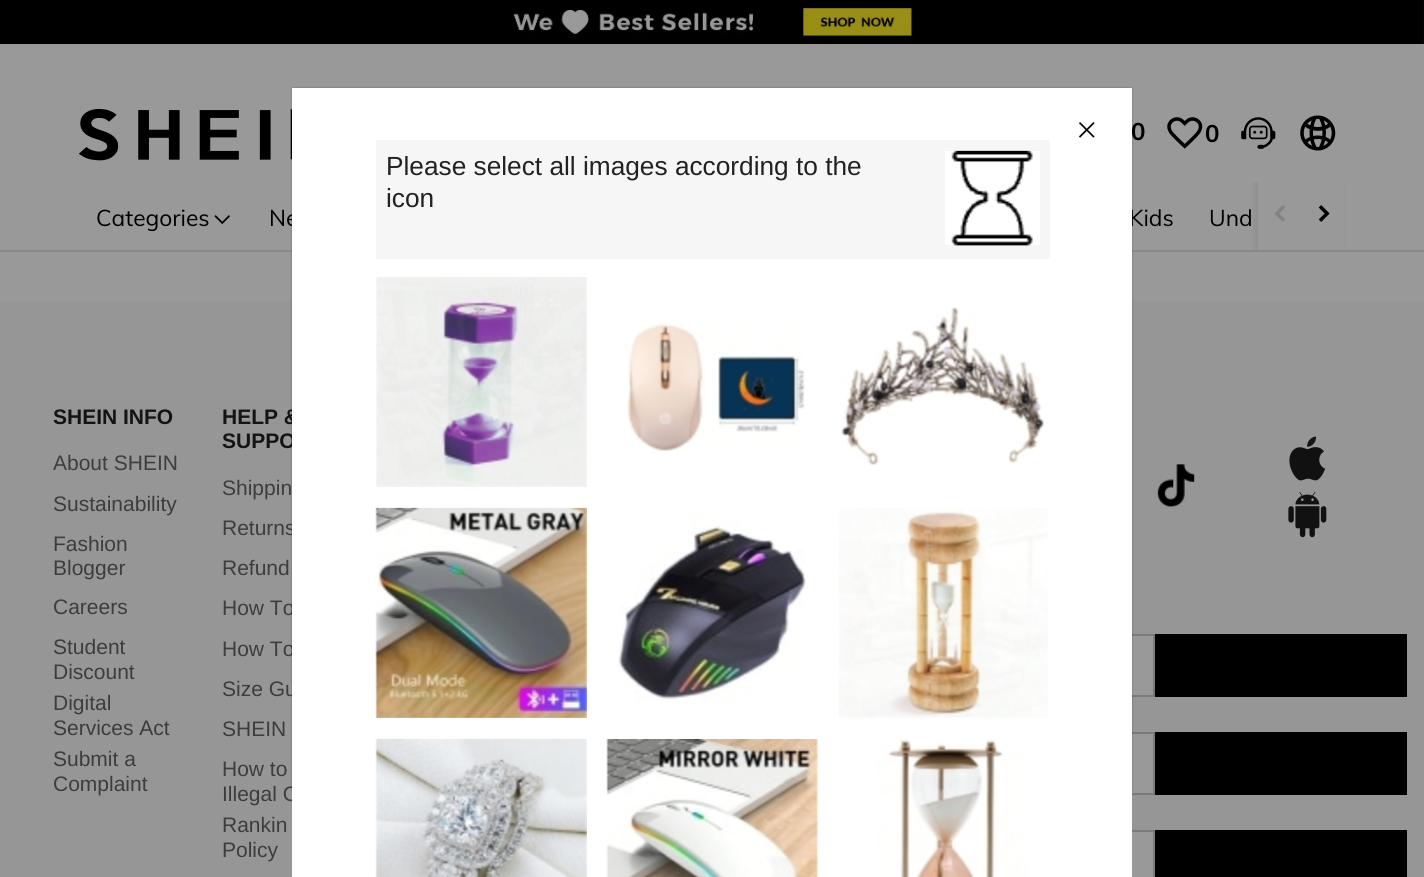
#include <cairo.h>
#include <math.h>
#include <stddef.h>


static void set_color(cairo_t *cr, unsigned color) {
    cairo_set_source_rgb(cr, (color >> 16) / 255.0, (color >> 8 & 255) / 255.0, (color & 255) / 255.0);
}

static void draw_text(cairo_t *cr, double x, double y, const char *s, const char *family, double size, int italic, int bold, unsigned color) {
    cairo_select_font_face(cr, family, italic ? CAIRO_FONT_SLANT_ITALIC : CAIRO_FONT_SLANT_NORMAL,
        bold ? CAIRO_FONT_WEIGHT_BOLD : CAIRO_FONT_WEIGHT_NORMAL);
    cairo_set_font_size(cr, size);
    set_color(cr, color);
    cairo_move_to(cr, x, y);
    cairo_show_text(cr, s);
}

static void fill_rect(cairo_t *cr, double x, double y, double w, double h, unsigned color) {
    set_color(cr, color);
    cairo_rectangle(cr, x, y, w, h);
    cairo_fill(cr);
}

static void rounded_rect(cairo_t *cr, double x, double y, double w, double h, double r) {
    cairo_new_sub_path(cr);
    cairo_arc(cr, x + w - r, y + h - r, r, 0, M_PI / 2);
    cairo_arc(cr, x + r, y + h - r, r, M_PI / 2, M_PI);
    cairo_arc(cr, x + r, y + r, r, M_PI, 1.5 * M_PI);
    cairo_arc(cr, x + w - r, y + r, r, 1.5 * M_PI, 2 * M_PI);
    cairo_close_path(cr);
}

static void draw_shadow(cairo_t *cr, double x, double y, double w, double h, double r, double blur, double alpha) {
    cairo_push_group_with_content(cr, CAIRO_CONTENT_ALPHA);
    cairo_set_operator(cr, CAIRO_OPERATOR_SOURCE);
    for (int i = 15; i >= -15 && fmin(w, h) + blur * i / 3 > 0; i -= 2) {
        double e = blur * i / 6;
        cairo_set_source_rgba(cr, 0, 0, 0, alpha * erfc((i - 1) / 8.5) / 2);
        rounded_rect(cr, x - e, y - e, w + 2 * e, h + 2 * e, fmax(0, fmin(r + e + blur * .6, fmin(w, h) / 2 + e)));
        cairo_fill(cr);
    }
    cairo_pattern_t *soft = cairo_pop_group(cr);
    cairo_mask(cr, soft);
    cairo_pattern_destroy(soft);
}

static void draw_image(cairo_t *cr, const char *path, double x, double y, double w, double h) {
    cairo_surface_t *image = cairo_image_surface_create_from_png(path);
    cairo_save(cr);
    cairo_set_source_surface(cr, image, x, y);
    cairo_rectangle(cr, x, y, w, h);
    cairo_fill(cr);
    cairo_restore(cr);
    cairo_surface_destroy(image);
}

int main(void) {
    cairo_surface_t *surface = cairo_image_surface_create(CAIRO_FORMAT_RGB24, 1424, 877);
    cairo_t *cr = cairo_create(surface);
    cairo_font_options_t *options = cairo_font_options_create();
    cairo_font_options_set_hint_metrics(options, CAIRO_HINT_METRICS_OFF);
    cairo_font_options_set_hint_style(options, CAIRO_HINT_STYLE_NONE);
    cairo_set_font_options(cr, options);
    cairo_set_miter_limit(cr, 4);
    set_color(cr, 0x999999);
    cairo_paint(cr);
    draw_image(cr, "assets/img1.png", 0, 0, 1424, 44);
    draw_image(cr, "assets/img2.png", 79, 109, 213, 52);
    draw_text(cr, 1131, 140, "0", "Muli", 24, 0, 1, 0x000000);
    draw_image(cr, "assets/img3.png", 1167, 117, 36, 32);
    draw_text(cr, 1205, 142, "0", "Muli", 24, 0, 1, 0x000000);
    draw_image(cr, "assets/img4.png", 1241, 117, 35, 32);
    draw_image(cr, "assets/img5.png", 1300, 115, 36, 36);
    fill_rect(cr, 0, 250, 1424, 2, 0x898989);
    draw_text(cr, 96, 226, "Categories", "Muli", 22.75, 0, 0, 0x000000);
    draw_image(cr, "assets/img6.png", 214, 215, 16, 9);
    draw_text(cr, 269, 226, "Ne", "Muli", 22.75, 0, 0, 0x000000);
    draw_text(cr, 1129, 226, "Kids", "Muli", 22.75, 0, 0, 0x000000);
    draw_text(cr, 1209, 226, "Und", "Muli", 22.75, 0, 0, 0x000000);
    cairo_save(cr);
    cairo_rectangle(cr, 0, 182, 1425, 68);
    cairo_clip(cr);
    set_color(cr, 0x000000);
    draw_shadow(cr, 1255, 182, 87, 68, 0, 2.5, 0.08);
    cairo_restore(cr);
    fill_rect(cr, 1258, 182, 86, 68, 0x999999);
    draw_image(cr, "assets/img7.png", 1274, 205, 11, 17);
    draw_image(cr, "assets/img8.png", 1318, 205, 12, 17);
    fill_rect(cr, 0, 301, 1424, 576, 0x969696);
    draw_text(cr, 53, 424, "SHEIN INFO", "Liberation Sans", 21, 0, 1, 0x141414);
    draw_text(cr, 53, 470, "About SHEIN", "Liberation Sans", 21, 0, 0, 0x3D3D3D);
    draw_text(cr, 53, 511, "Sustainability", "Liberation Sans", 21, 0, 0, 0x3D3D3D);
    draw_text(cr, 53, 551, "Fashion", "Liberation Sans", 21, 0, 0, 0x3D3D3D);
    draw_text(cr, 53, 575, "Blogger", "Liberation Sans", 21, 0, 0, 0x3D3D3D);
    draw_text(cr, 53, 614, "Careers", "Liberation Sans", 21, 0, 0, 0x3D3D3D);
    draw_text(cr, 53, 654, "Student", "Liberation Sans", 21, 0, 0, 0x3D3D3D);
    draw_text(cr, 53, 679, "Discount", "Liberation Sans", 21, 0, 0, 0x3D3D3D);
    draw_text(cr, 53, 710, "Digital", "Liberation Sans", 21, 0, 0, 0x3D3D3D);
    draw_text(cr, 53, 735, "Services Act", "Liberation Sans", 21, 0, 0, 0x3D3D3D);
    draw_text(cr, 53, 766, "Submit a", "Liberation Sans", 21, 0, 0, 0x3D3D3D);
    draw_text(cr, 53, 791, "Complaint", "Liberation Sans", 21, 0, 0, 0x3D3D3D);
    draw_text(cr, 222, 424, "HELP &", "Liberation Sans", 21, 0, 1, 0x141414);
    draw_text(cr, 222, 448, "SUPPO", "Liberation Sans", 21, 0, 1, 0x141414);
    draw_text(cr, 222, 495, "Shippin", "Liberation Sans", 21, 0, 0, 0x3D3D3D);
    draw_text(cr, 222, 535, "Returns", "Liberation Sans", 21, 0, 0, 0x3D3D3D);
    draw_text(cr, 222, 575, "Refund", "Liberation Sans", 21, 0, 0, 0x3D3D3D);
    draw_text(cr, 222, 615, "How To", "Liberation Sans", 21, 0, 0, 0x3D3D3D);
    draw_text(cr, 222, 656, "How To", "Liberation Sans", 21, 0, 0, 0x3D3D3D);
    draw_text(cr, 222, 696, "Size Gu", "Liberation Sans", 21, 0, 0, 0x3D3D3D);
    draw_text(cr, 222, 736, "SHEIN", "Liberation Sans", 21, 0, 0, 0x3D3D3D);
    draw_text(cr, 222, 776, "How to", "Liberation Sans", 21, 0, 0, 0x3D3D3D);
    draw_text(cr, 222, 801, "Illegal C", "Liberation Sans", 21, 0, 0, 0x3D3D3D);
    draw_text(cr, 222, 832, "Rankin", "Liberation Sans", 21, 0, 0, 0x3D3D3D);
    draw_text(cr, 222, 857, "Policy", "Liberation Sans", 21, 0, 0, 0x3D3D3D);
    draw_image(cr, "assets/img9.png", 1157, 464, 38, 43);
    draw_image(cr, "assets/img10.png", 1289, 436, 37, 45);
    draw_image(cr, "assets/img11.png", 1288, 492, 39, 46);
    fill_rect(cr, 1132, 636, 21, 59, 0x999999);
    cairo_rectangle(cr, 731, 635, 423, 61);
    set_color(cr, 0x7A7A7A);
    cairo_stroke(cr);
    fill_rect(cr, 1155, 634, 252, 63, 0x000000);
    fill_rect(cr, 1132, 734, 21, 59, 0x999999);
    cairo_rectangle(cr, 871, 733, 283, 61);
    set_color(cr, 0x7A7A7A);
    cairo_stroke(cr);
    fill_rect(cr, 1155, 732, 252, 63, 0x000000);
    fill_rect(cr, 1132, 832, 21, 45, 0x999999);
    cairo_rectangle(cr, 871, 831, 283, 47);
    set_color(cr, 0x7A7A7A);
    cairo_stroke(cr);
    fill_rect(cr, 1155, 830, 252, 47, 0x000000);
    set_color(cr, 0x000000);
    draw_shadow(cr, 292, 88, 840, 703, 0, 1, 0.3);
    fill_rect(cr, 292, 88, 840, 789, 0xFFFFFF);
    draw_image(cr, "assets/img12.png", 1078, 122, 17, 16);
    fill_rect(cr, 376, 140, 674, 119, 0xF6F6F6);
    draw_text(cr, 386, 175, "Please select all images according to the", "Liberation Sans", 26.25, 0, 0, 0x222222);
    draw_text(cr, 386, 207, "icon", "Liberation Sans", 26.25, 0, 0, 0x222222);
    fill_rect(cr, 945, 151, 95, 94, 0xFFFFFF);
    draw_image(cr, "assets/img13.png", 951, 150, 82, 96);
    draw_image(cr, "assets/img14.png", 376, 277, 211, 210);
    draw_image(cr, "assets/img15.png", 627, 323, 178, 130);
    draw_image(cr, "assets/img16.png", 841, 307, 203, 159);
    draw_image(cr, "assets/img17.png", 375, 507, 212, 211);
    draw_image(cr, "assets/img18.png", 618, 508, 188, 196);
    draw_image(cr, "assets/img19.png", 838, 508, 210, 210);
    draw_image(cr, "assets/img20.png", 375, 738, 212, 139);
    draw_image(cr, "assets/img21.png", 606, 739, 212, 138);
    draw_image(cr, "assets/img22.png", 876, 739, 153, 138);
    cairo_surface_write_to_png(surface, "output.png");
    cairo_font_options_destroy(options);
    cairo_destroy(cr);
    cairo_surface_destroy(surface);
    return 0;
}
